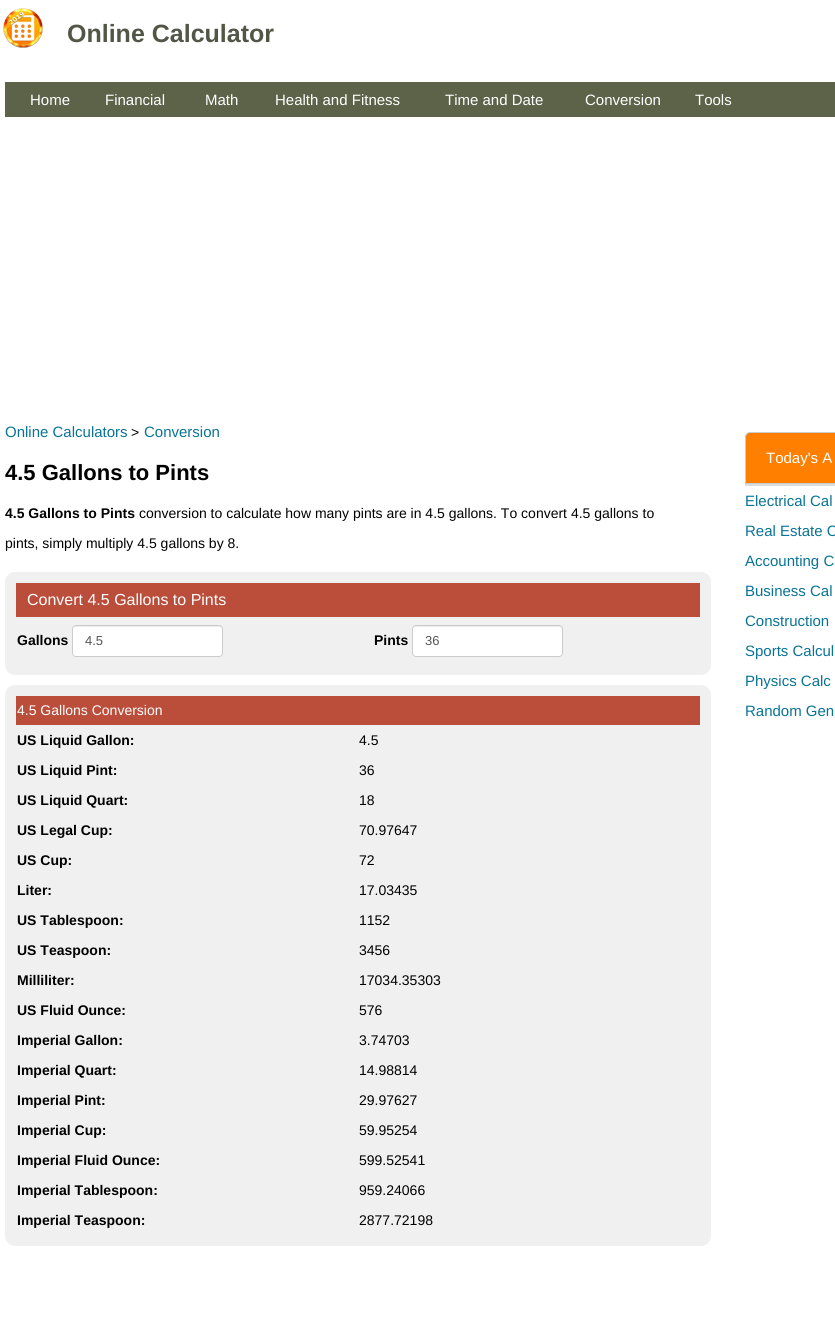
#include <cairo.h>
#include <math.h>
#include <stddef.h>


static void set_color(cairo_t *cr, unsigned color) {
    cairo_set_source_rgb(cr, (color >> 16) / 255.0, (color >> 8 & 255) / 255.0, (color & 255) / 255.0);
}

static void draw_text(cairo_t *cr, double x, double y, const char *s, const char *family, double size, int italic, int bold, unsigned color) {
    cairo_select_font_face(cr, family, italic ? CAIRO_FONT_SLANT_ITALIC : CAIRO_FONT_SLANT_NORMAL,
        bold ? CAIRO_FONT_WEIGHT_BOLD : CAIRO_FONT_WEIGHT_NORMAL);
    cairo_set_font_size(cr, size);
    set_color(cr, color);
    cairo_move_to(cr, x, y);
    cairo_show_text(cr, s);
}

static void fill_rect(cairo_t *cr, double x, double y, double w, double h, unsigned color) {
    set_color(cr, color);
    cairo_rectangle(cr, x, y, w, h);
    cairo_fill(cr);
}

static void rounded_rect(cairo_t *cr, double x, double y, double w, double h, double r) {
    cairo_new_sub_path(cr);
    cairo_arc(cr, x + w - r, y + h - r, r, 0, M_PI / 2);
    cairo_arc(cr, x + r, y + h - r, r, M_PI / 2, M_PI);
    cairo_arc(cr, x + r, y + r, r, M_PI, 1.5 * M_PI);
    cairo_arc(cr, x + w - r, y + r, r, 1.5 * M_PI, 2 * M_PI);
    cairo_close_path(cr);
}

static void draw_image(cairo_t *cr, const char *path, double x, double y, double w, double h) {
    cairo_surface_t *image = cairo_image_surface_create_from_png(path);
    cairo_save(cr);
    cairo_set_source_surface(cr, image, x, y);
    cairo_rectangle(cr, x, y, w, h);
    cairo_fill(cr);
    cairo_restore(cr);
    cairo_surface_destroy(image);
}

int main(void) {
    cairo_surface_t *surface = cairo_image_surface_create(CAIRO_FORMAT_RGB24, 835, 1330);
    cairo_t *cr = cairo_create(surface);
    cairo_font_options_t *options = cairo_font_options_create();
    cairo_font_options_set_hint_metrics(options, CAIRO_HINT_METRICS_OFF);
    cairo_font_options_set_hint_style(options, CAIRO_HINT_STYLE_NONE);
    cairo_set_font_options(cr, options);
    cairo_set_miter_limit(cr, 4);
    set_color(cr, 0xFFFFFF);
    cairo_paint(cr);
    draw_image(cr, "assets/img1.png", 3, 8, 40, 40);
    draw_text(cr, 67, 42, "Online Calculator", "Liberation Sans", 25, 0, 1, 0x525646);
    fill_rect(cr, 5, 82, 830, 35, 0x5C6349);
    draw_text(cr, 30, 105, "Home", "Liberation Sans", 15, 0, 0, 0xFFFFFF);
    draw_text(cr, 105, 105, "Financial", "Liberation Sans", 15, 0, 0, 0xFFFFFF);
    draw_text(cr, 205, 105, "Math", "Liberation Sans", 15, 0, 0, 0xFFFFFF);
    draw_text(cr, 275, 105, "Health and Fitness", "Liberation Sans", 15, 0, 0, 0xFFFFFF);
    draw_text(cr, 445, 105, "Time and Date", "Liberation Sans", 15, 0, 0, 0xFFFFFF);
    draw_text(cr, 585, 105, "Conversion", "Liberation Sans", 15, 0, 0, 0xFFFFFF);
    draw_text(cr, 695, 105, "Tools", "Liberation Sans", 15, 0, 0, 0xFFFFFF);
    draw_text(cr, 5, 437, "Online Calculators", "Liberation Sans", 15, 0, 0, 0x087397);
    draw_text(cr, 131, 437, ">", "Liberation Sans", 14, 0, 0, 0x000000);
    draw_text(cr, 144, 437, "Conversion", "Liberation Sans", 15, 0, 0, 0x087397);
    draw_text(cr, 5, 480, "4.5 Gallons to Pints", "Liberation Sans", 22, 0, 1, 0x000000);
    draw_text(cr, 5, 518, "4.5 Gallons to Pints", "Liberation Sans", 14, 0, 1, 0x000000);
    draw_text(cr, 139, 518, "conversion to calculate how many pints are in 4.5 gallons. To convert 4.5 gallons to", "Liberation Sans", 14, 0, 0, 0x000000);
    draw_text(cr, 5, 548, "pints, simply multiply 4.5 gallons by 8.", "Liberation Sans", 14, 0, 0, 0x000000);
    set_color(cr, 0xF0F0F0);
    rounded_rect(cr, 5, 572, 706, 103, 10);
    cairo_fill(cr);
    fill_rect(cr, 16, 583, 684, 34, 0xBB4D3B);
    draw_text(cr, 27, 605, "Convert 4.5 Gallons to Pints", "Liberation Sans", 16, 0, 0, 0xFFFFFF);
    draw_text(cr, 17, 645, "Gallons", "Liberation Sans", 14, 0, 1, 0x000000);
    set_color(cr, 0xFFFFFF);
    rounded_rect(cr, 72, 625, 151, 32, 4);
    cairo_fill(cr);
    set_color(cr, 0xECECEC);
    cairo_new_path(cr);
    cairo_move_to(cr, 76, 627);
    cairo_line_to(cr, 219, 627);
    cairo_curve_to(cr, 221, 627, 222, 628, 222, 630);
    cairo_curve_to(cr, 222, 628, 222, 627, 220, 626);
    cairo_line_to(cr, 100, 626);
    cairo_curve_to(cr, 92, 626, 73, 621, 73, 630);
    cairo_curve_to(cr, 73, 628, 74, 627, 76, 627);
    cairo_close_path(cr);
    cairo_fill(cr);
    rounded_rect(cr, 72.5, 625.5, 150, 31, 3.5);
    set_color(cr, 0xCCCCCC);
    cairo_set_line_width(cr, 1);
    cairo_stroke(cr);
    draw_text(cr, 85, 645, "4.5", "Liberation Sans", 13, 0, 0, 0x555555);
    draw_text(cr, 374, 645, "Pints", "Liberation Sans", 14, 0, 1, 0x000000);
    set_color(cr, 0xFFFFFF);
    rounded_rect(cr, 412, 625, 151, 32, 4);
    cairo_fill(cr);
    set_color(cr, 0xECECEC);
    cairo_new_path(cr);
    cairo_move_to(cr, 416, 627);
    cairo_line_to(cr, 559, 627);
    cairo_curve_to(cr, 561, 627, 562, 628, 562, 630);
    cairo_curve_to(cr, 562, 628, 562, 627, 560, 626);
    cairo_line_to(cr, 440, 626);
    cairo_curve_to(cr, 432, 626, 413, 621, 413, 630);
    cairo_curve_to(cr, 413, 628, 414, 627, 416, 627);
    cairo_close_path(cr);
    cairo_fill(cr);
    rounded_rect(cr, 412.5, 625.5, 150, 31, 3.5);
    set_color(cr, 0xCCCCCC);
    cairo_stroke(cr);
    draw_text(cr, 425, 645, "36", "Liberation Sans", 13, 0, 0, 0x555555);
    set_color(cr, 0xF0F0F0);
    rounded_rect(cr, 5, 685, 706, 561, 10);
    cairo_fill(cr);
    fill_rect(cr, 16, 696, 684, 29, 0xBB4D3B);
    draw_text(cr, 17, 715, "4.5 Gallons Conversion", "Liberation Sans", 14, 0, 0, 0xFFFFFF);
    draw_text(cr, 17, 745, "US Liquid Gallon:", "Liberation Sans", 14, 0, 1, 0x000000);
    draw_text(cr, 359, 745, "4.5", "Liberation Sans", 14, 0, 0, 0x000000);
    draw_text(cr, 17, 775, "US Liquid Pint:", "Liberation Sans", 14, 0, 1, 0x000000);
    draw_text(cr, 359, 775, "36", "Liberation Sans", 14, 0, 0, 0x000000);
    draw_text(cr, 17, 805, "US Liquid Quart:", "Liberation Sans", 14, 0, 1, 0x000000);
    draw_text(cr, 359, 805, "18", "Liberation Sans", 14, 0, 0, 0x000000);
    draw_text(cr, 17, 835, "US Legal Cup:", "Liberation Sans", 14, 0, 1, 0x000000);
    draw_text(cr, 359, 835, "70.97647", "Liberation Sans", 14, 0, 0, 0x000000);
    draw_text(cr, 17, 865, "US Cup:", "Liberation Sans", 14, 0, 1, 0x000000);
    draw_text(cr, 359, 865, "72", "Liberation Sans", 14, 0, 0, 0x000000);
    draw_text(cr, 17, 895, "Liter:", "Liberation Sans", 14, 0, 1, 0x000000);
    draw_text(cr, 359, 895, "17.03435", "Liberation Sans", 14, 0, 0, 0x000000);
    draw_text(cr, 17, 925, "US Tablespoon:", "Liberation Sans", 14, 0, 1, 0x000000);
    draw_text(cr, 359, 925, "1152", "Liberation Sans", 14, 0, 0, 0x000000);
    draw_text(cr, 17, 955, "US Teaspoon:", "Liberation Sans", 14, 0, 1, 0x000000);
    draw_text(cr, 359, 955, "3456", "Liberation Sans", 14, 0, 0, 0x000000);
    draw_text(cr, 17, 985, "Milliliter:", "Liberation Sans", 14, 0, 1, 0x000000);
    draw_text(cr, 359, 985, "17034.35303", "Liberation Sans", 14, 0, 0, 0x000000);
    draw_text(cr, 17, 1015, "US Fluid Ounce:", "Liberation Sans", 14, 0, 1, 0x000000);
    draw_text(cr, 359, 1015, "576", "Liberation Sans", 14, 0, 0, 0x000000);
    draw_text(cr, 17, 1045, "Imperial Gallon:", "Liberation Sans", 14, 0, 1, 0x000000);
    draw_text(cr, 359, 1045, "3.74703", "Liberation Sans", 14, 0, 0, 0x000000);
    draw_text(cr, 17, 1075, "Imperial Quart:", "Liberation Sans", 14, 0, 1, 0x000000);
    draw_text(cr, 359, 1075, "14.98814", "Liberation Sans", 14, 0, 0, 0x000000);
    draw_text(cr, 17, 1105, "Imperial Pint:", "Liberation Sans", 14, 0, 1, 0x000000);
    draw_text(cr, 359, 1105, "29.97627", "Liberation Sans", 14, 0, 0, 0x000000);
    draw_text(cr, 17, 1135, "Imperial Cup:", "Liberation Sans", 14, 0, 1, 0x000000);
    draw_text(cr, 359, 1135, "59.95254", "Liberation Sans", 14, 0, 0, 0x000000);
    draw_text(cr, 17, 1165, "Imperial Fluid Ounce:", "Liberation Sans", 14, 0, 1, 0x000000);
    draw_text(cr, 359, 1165, "599.52541", "Liberation Sans", 14, 0, 0, 0x000000);
    draw_text(cr, 17, 1195, "Imperial Tablespoon:", "Liberation Sans", 14, 0, 1, 0x000000);
    draw_text(cr, 359, 1195, "959.24066", "Liberation Sans", 14, 0, 0, 0x000000);
    draw_text(cr, 17, 1225, "Imperial Teaspoon:", "Liberation Sans", 14, 0, 1, 0x000000);
    draw_text(cr, 359, 1225, "2877.72198", "Liberation Sans", 14, 0, 0, 0x000000);
    fill_rect(cr, 745, 484, 90, 2, 0xDDDDDD);
    set_color(cr, 0xFF7F00);
    cairo_new_path(cr);
    cairo_move_to(cr, 750, 432.5);
    cairo_line_to(cr, 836, 432.5);
    cairo_curve_to(cr, 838.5, 432.5, 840.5, 434.5, 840.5, 437);
    cairo_line_to(cr, 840.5, 483.5);
    cairo_line_to(cr, 745.5, 483.5);
    cairo_line_to(cr, 745.5, 437);
    cairo_curve_to(cr, 745.5, 434.5, 747.5, 432.5, 750, 432.5);
    cairo_close_path(cr);
    cairo_fill_preserve(cr);
    set_color(cr, 0xCCCCCC);
    cairo_stroke(cr);
    draw_text(cr, 766, 463, "Today's A", "Liberation Sans", 15, 0, 0, 0xFFFFFF);
    draw_text(cr, 745, 506, "Electrical Cal", "Liberation Sans", 15, 0, 0, 0x087397);
    draw_text(cr, 745, 536, "Real Estate C", "Liberation Sans", 15, 0, 0, 0x087397);
    draw_text(cr, 745, 566, "Accounting C", "Liberation Sans", 15, 0, 0, 0x087397);
    draw_text(cr, 745, 596, "Business Cal", "Liberation Sans", 15, 0, 0, 0x087397);
    draw_text(cr, 745, 626, "Construction", "Liberation Sans", 15, 0, 0, 0x087397);
    draw_text(cr, 745, 656, "Sports Calcul", "Liberation Sans", 15, 0, 0, 0x087397);
    draw_text(cr, 745, 686, "Physics Calc", "Liberation Sans", 15, 0, 0, 0x087397);
    draw_text(cr, 745, 716, "Random Gen", "Liberation Sans", 15, 0, 0, 0x087397);
    cairo_surface_write_to_png(surface, "output.png");
    cairo_font_options_destroy(options);
    cairo_destroy(cr);
    cairo_surface_destroy(surface);
    return 0;
}
